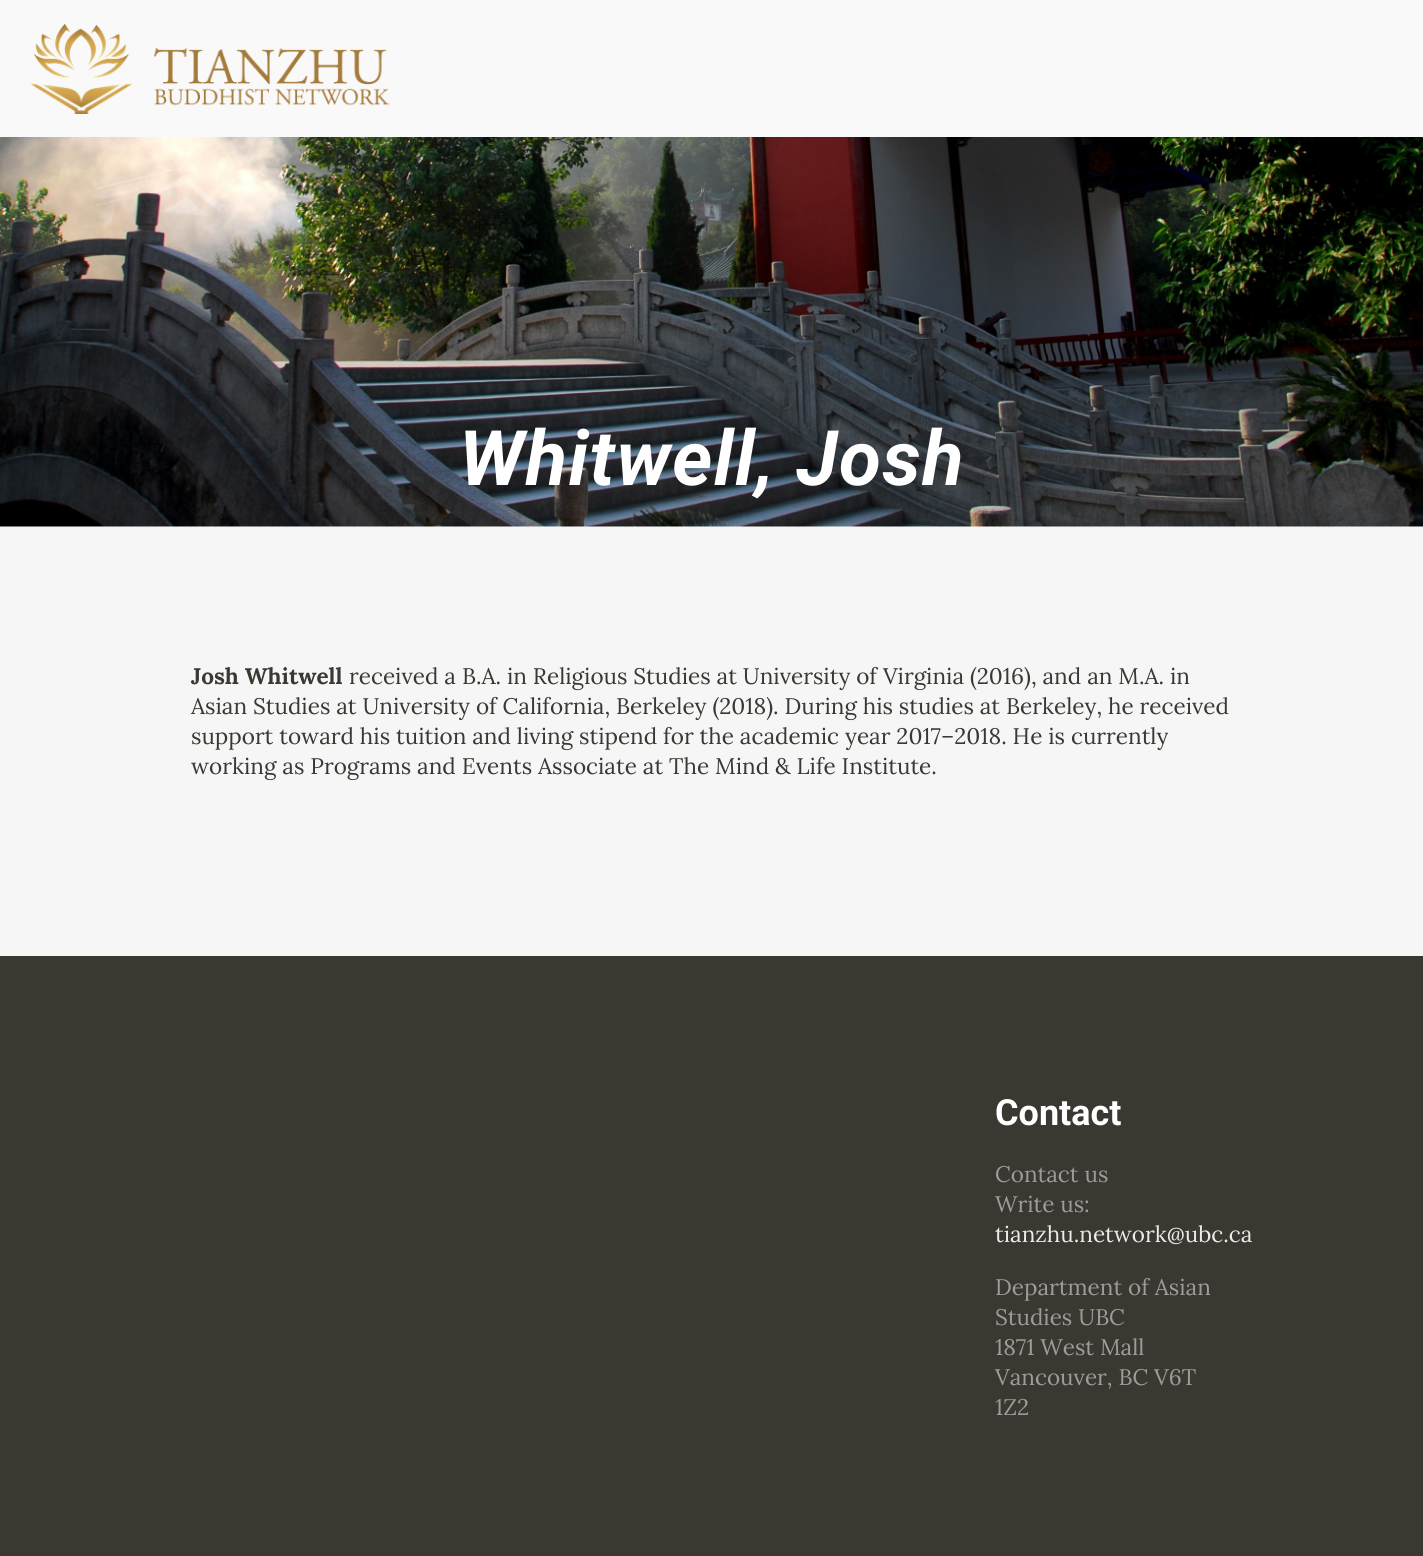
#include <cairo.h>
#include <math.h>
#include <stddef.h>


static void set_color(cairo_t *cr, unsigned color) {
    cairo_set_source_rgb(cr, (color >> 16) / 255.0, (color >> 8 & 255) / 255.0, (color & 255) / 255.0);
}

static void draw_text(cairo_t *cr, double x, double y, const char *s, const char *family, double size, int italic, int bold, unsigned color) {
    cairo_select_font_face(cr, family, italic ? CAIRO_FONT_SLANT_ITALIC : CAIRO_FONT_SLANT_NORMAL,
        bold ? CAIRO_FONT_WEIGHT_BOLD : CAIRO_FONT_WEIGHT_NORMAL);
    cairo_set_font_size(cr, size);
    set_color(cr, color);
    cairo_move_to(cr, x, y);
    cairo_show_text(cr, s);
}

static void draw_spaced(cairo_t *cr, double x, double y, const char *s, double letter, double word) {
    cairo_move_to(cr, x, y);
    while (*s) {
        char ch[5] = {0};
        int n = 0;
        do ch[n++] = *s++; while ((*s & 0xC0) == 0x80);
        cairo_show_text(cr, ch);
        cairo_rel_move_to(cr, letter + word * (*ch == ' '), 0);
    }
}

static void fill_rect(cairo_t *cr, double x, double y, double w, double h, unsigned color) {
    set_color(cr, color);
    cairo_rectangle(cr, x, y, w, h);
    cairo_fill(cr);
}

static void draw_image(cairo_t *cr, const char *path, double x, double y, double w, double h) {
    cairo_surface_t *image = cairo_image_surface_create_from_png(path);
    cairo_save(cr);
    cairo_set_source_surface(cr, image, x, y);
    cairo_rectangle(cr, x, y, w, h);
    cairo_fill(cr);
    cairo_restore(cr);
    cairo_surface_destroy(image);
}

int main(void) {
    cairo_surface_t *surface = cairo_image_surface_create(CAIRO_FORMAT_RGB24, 1423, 1556);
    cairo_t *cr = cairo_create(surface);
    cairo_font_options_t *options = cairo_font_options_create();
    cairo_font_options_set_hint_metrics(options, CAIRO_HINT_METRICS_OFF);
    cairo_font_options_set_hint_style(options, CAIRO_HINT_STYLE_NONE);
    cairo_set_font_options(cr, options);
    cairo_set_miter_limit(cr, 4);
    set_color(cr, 0xF6F6F6);
    cairo_paint(cr);
    fill_rect(cr, 0, 526, 1423, 1, 0xFFFFFF);
    draw_image(cr, "assets/img1.png", 0, 137, 1423, 390);
    fill_rect(cr, 0, 0, 1423, 137, 0xFAF9F9);
    draw_image(cr, "assets/img2.png", 30, 24, 360, 90);
    cairo_select_font_face(cr, "Roboto", CAIRO_FONT_SLANT_ITALIC, CAIRO_FONT_WEIGHT_BOLD);
    cairo_set_font_size(cr, 76.5);
    set_color(cr, 0xFFFFFF);
    draw_spaced(cr, 459, 485, "Whitwell, Josh", 1.5, 0);
    draw_text(cr, 191, 684, "Josh Whitwell", "Lora", 22.5, 0, 1, 0x3B3731);
    draw_text(cr, 349, 684, "received a B.A. in Religious Studies at University of Virginia (2016), and an M.A. in", "Lora", 22.5, 0, 0, 0x3B3731);
    draw_text(cr, 191, 714, "Asian Studies at University of California, Berkeley (2018). During his studies at Berkeley, he received", "Lora", 22.5, 0, 0, 0x3B3731);
    draw_text(cr, 191, 744, "support toward his tuition and living stipend for the academic year 2017–2018. He is currently", "Lora", 22.5, 0, 0, 0x3B3731);
    draw_text(cr, 191, 774, "working as Programs and Events Associate at The Mind & Life Institute.", "Lora", 22.5, 0, 0, 0x3B3731);
    fill_rect(cr, 0, 956, 1423, 600, 0x3B3731);
    draw_text(cr, 995, 1125, "Contact", "Roboto", 36, 0, 1, 0xFFFFFF);
    draw_text(cr, 995, 1182, "Contact us", "Lora", 22.5, 0, 0, 0x9C9C9C);
    draw_text(cr, 995, 1212, "Write us:", "Lora", 22.5, 0, 0, 0x9C9C9C);
    draw_text(cr, 995, 1242, "tianzhu.network@ubc.ca", "Lora", 22.5, 0, 0, 0xEBEBEB);
    draw_text(cr, 995, 1295, "Department of Asian", "Lora", 22.5, 0, 0, 0x9C9C9C);
    draw_text(cr, 995, 1325, "Studies UBC", "Lora", 22.5, 0, 0, 0x9C9C9C);
    draw_text(cr, 995, 1355, "1871 West Mall", "Lora", 22.5, 0, 0, 0x9C9C9C);
    draw_text(cr, 995, 1385, "Vancouver, BC V6T", "Lora", 22.5, 0, 0, 0x9C9C9C);
    draw_text(cr, 995, 1415, "1Z2", "Lora", 22.5, 0, 0, 0x9C9C9C);
    cairo_surface_write_to_png(surface, "output.png");
    cairo_font_options_destroy(options);
    cairo_destroy(cr);
    cairo_surface_destroy(surface);
    return 0;
}
